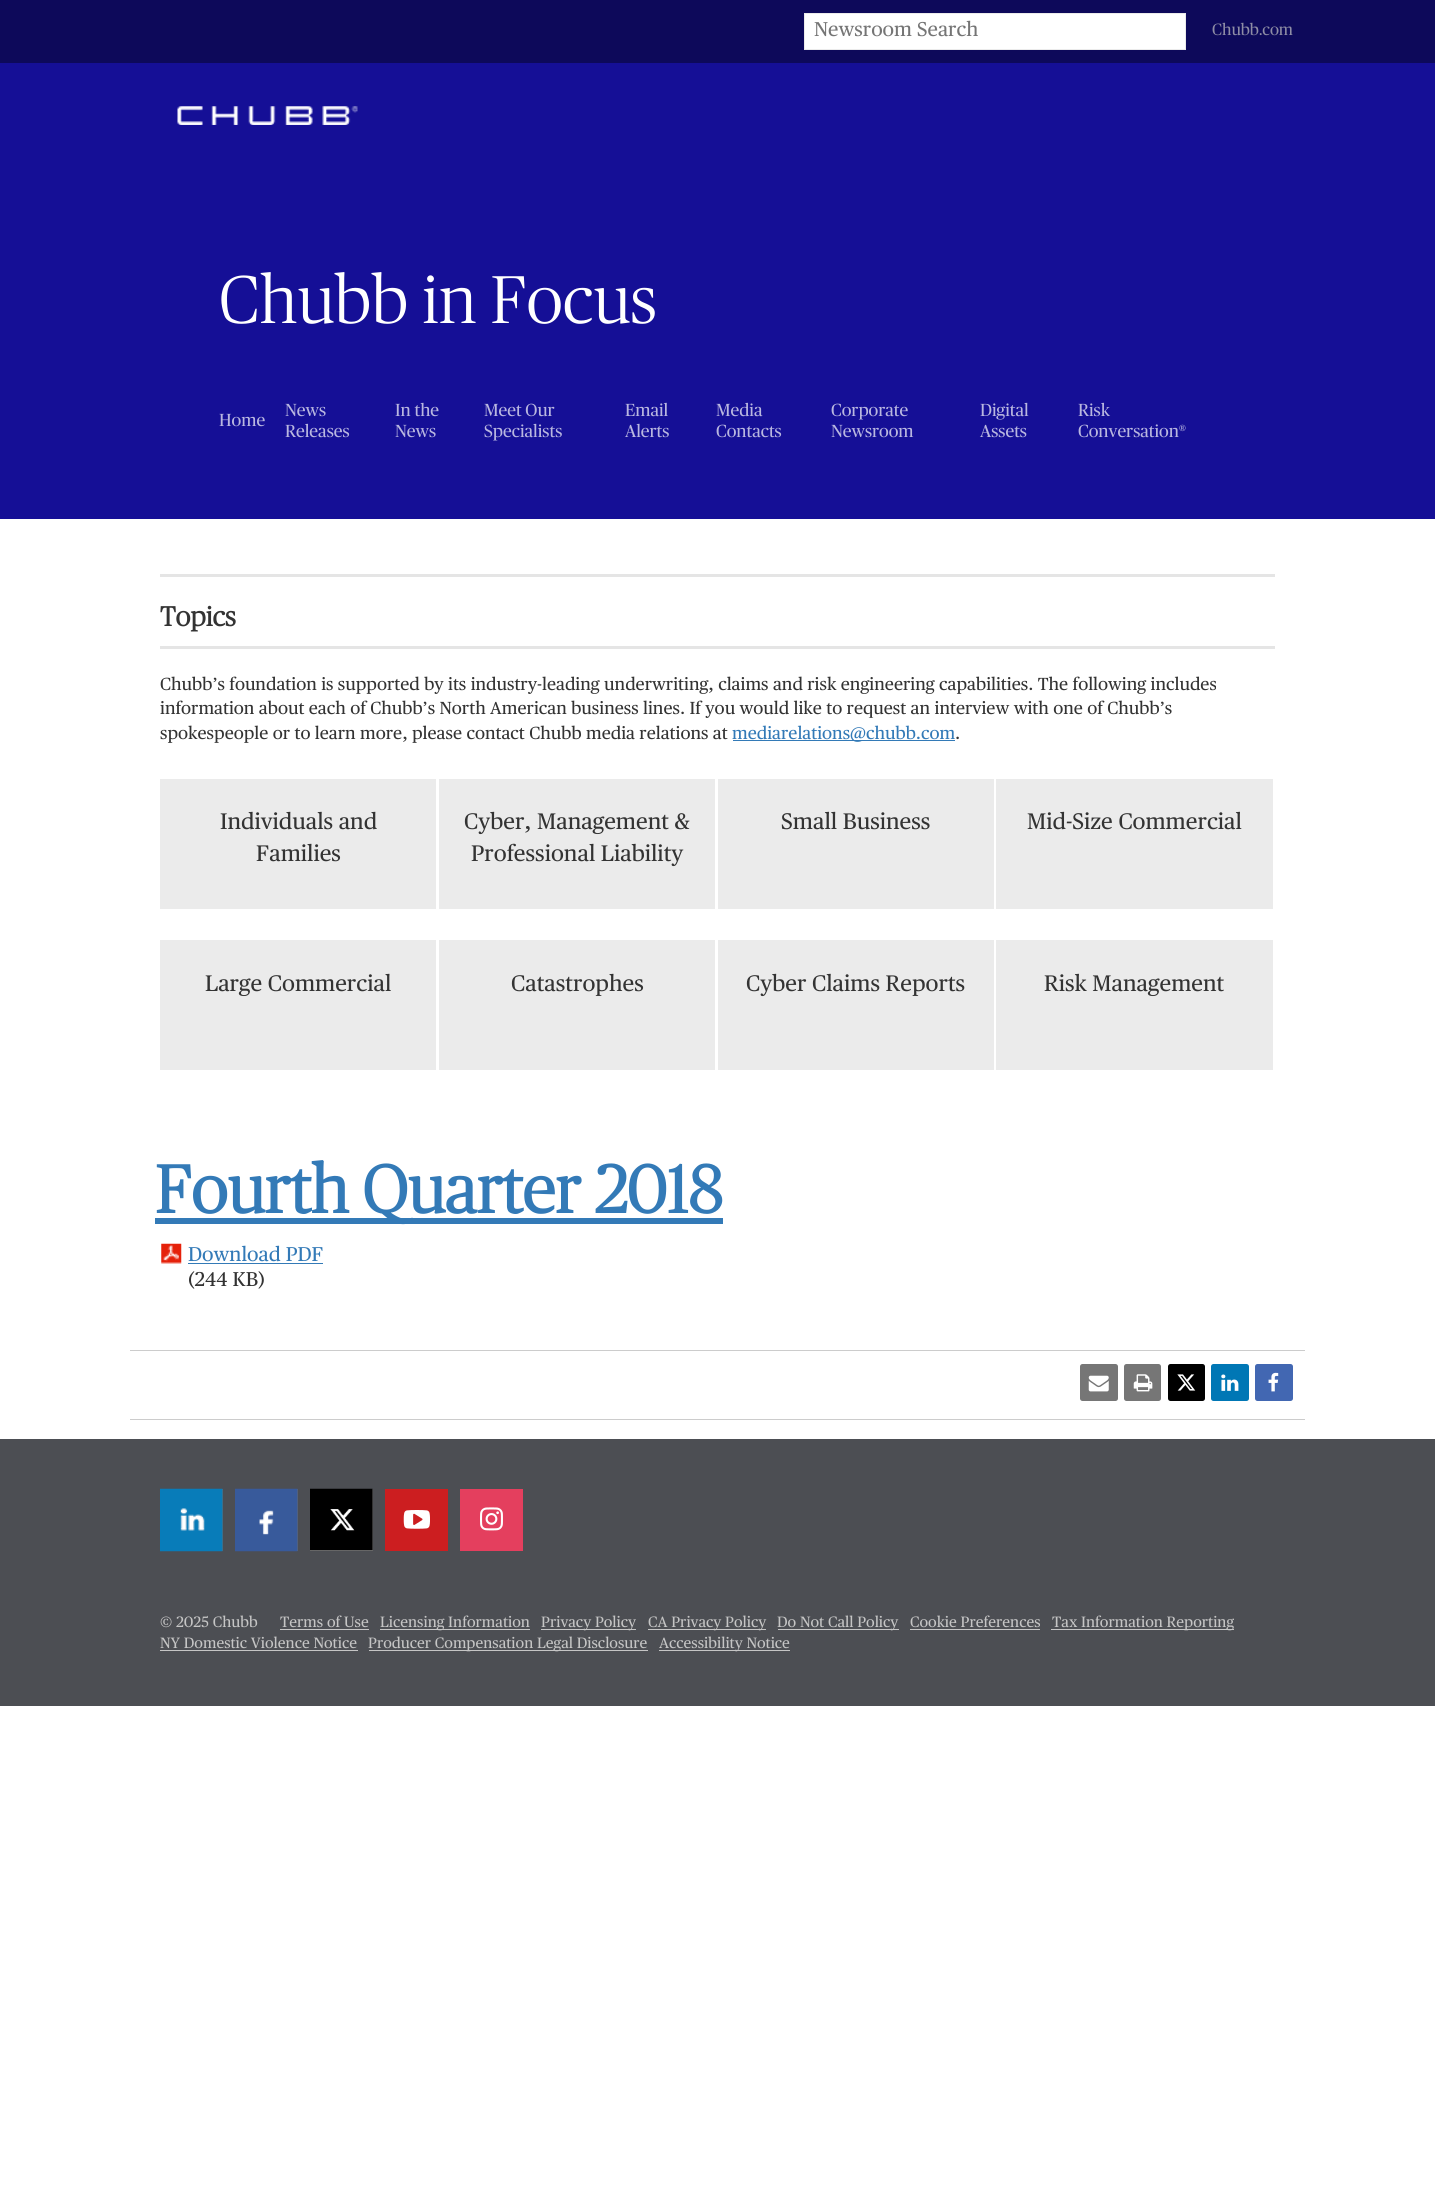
#include <cairo.h>
#include <math.h>
#include <stddef.h>


static void set_color(cairo_t *cr, unsigned color) {
    cairo_set_source_rgb(cr, (color >> 16) / 255.0, (color >> 8 & 255) / 255.0, (color & 255) / 255.0);
}

static void draw_text(cairo_t *cr, double x, double y, const char *s, const char *family, double size, int italic, int bold, unsigned color) {
    cairo_select_font_face(cr, family, italic ? CAIRO_FONT_SLANT_ITALIC : CAIRO_FONT_SLANT_NORMAL,
        bold ? CAIRO_FONT_WEIGHT_BOLD : CAIRO_FONT_WEIGHT_NORMAL);
    cairo_set_font_size(cr, size);
    set_color(cr, color);
    cairo_move_to(cr, x, y);
    cairo_show_text(cr, s);
}

static void fill_rect(cairo_t *cr, double x, double y, double w, double h, unsigned color) {
    set_color(cr, color);
    cairo_rectangle(cr, x, y, w, h);
    cairo_fill(cr);
}

static void rounded_rect(cairo_t *cr, double x, double y, double w, double h, double r) {
    cairo_new_sub_path(cr);
    cairo_arc(cr, x + w - r, y + h - r, r, 0, M_PI / 2);
    cairo_arc(cr, x + r, y + h - r, r, M_PI / 2, M_PI);
    cairo_arc(cr, x + r, y + r, r, M_PI, 1.5 * M_PI);
    cairo_arc(cr, x + w - r, y + r, r, 1.5 * M_PI, 2 * M_PI);
    cairo_close_path(cr);
}

static void draw_image(cairo_t *cr, const char *path, double x, double y, double w, double h) {
    cairo_surface_t *image = cairo_image_surface_create_from_png(path);
    cairo_save(cr);
    cairo_set_source_surface(cr, image, x, y);
    cairo_rectangle(cr, x, y, w, h);
    cairo_fill(cr);
    cairo_restore(cr);
    cairo_surface_destroy(image);
}

int main(void) {
    cairo_surface_t *surface = cairo_image_surface_create(CAIRO_FORMAT_RGB24, 1435, 2208);
    cairo_t *cr = cairo_create(surface);
    cairo_font_options_t *options = cairo_font_options_create();
    cairo_font_options_set_hint_metrics(options, CAIRO_HINT_METRICS_OFF);
    cairo_font_options_set_hint_style(options, CAIRO_HINT_STYLE_NONE);
    cairo_set_font_options(cr, options);
    cairo_set_miter_limit(cr, 4);
    set_color(cr, 0xFFFFFF);
    cairo_paint(cr);
    fill_rect(cr, 0, 63, 1435, 456, 0x150F96);
    fill_rect(cr, 0, 0, 1435, 63, 0x0D095A);
    set_color(cr, 0xFFFFFF);
    cairo_rectangle(cr, 804.5, 13.5, 381, 36);
    cairo_fill_preserve(cr);
    set_color(cr, 0xEBEBEB);
    cairo_set_line_width(cr, 1);
    cairo_stroke(cr);
    draw_text(cr, 814, 36, "Newsroom Search", "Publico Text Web", 20, 0, 0, 0x757575);
    draw_text(cr, 1212, 35, "Chubb.com", "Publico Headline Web", 16.25, 0, 0, 0x8E8DA5);
    draw_image(cr, "assets/img1.png", 177, 106, 181, 19);
    draw_text(cr, 219, 323, "Chubb in Focus", "Publico Headline Web Light", 67.5, 0, 0, 0xFFFFFF);
    draw_text(cr, 219, 426, "Home", "Publico Headline Web", 17.5, 0, 0, 0xB9B7E0);
    draw_text(cr, 285, 416, "News", "Publico Headline Web", 17.5, 0, 0, 0xB9B7E0);
    draw_text(cr, 285, 437, "Releases", "Publico Headline Web", 17.5, 0, 0, 0xB9B7E0);
    draw_text(cr, 395, 416, "In the", "Publico Headline Web", 17.5, 0, 0, 0xB9B7E0);
    draw_text(cr, 395, 437, "News", "Publico Headline Web", 17.5, 0, 0, 0xB9B7E0);
    draw_text(cr, 484, 416, "Meet Our", "Publico Headline Web", 17.5, 0, 0, 0xB9B7E0);
    draw_text(cr, 484, 437, "Specialists", "Publico Headline Web", 17.5, 0, 0, 0xB9B7E0);
    draw_text(cr, 625, 416, "Email", "Publico Headline Web", 17.5, 0, 0, 0xB9B7E0);
    draw_text(cr, 625, 437, "Alerts", "Publico Headline Web", 17.5, 0, 0, 0xB9B7E0);
    draw_text(cr, 716, 416, "Media", "Publico Headline Web", 17.5, 0, 0, 0xB9B7E0);
    draw_text(cr, 716, 437, "Contacts", "Publico Headline Web", 17.5, 0, 0, 0xB9B7E0);
    draw_text(cr, 831, 416, "Corporate", "Publico Headline Web", 17.5, 0, 0, 0xB9B7E0);
    draw_text(cr, 831, 437, "Newsroom", "Publico Headline Web", 17.5, 0, 0, 0xB9B7E0);
    draw_text(cr, 980, 416, "Digital", "Publico Headline Web", 17.5, 0, 0, 0xB9B7E0);
    draw_text(cr, 980, 437, "Assets", "Publico Headline Web", 17.5, 0, 0, 0xB9B7E0);
    draw_text(cr, 1078, 416, "Risk", "Publico Headline Web", 17.5, 0, 0, 0xB9B7E0);
    draw_text(cr, 1078, 437, "Conversation®", "Publico Headline Web", 17.5, 0, 0, 0xB9B7E0);
    fill_rect(cr, 160, 574, 1115, 3, 0xE5E5E5);
    fill_rect(cr, 160, 646, 1115, 3, 0xE5E5E5);
    draw_text(cr, 160, 626, "Topics", "Publico Headline Web", 27.5, 0, 1, 0x333333);
    draw_text(cr, 160, 690, "Chubb’s foundation is supported by its industry-leading underwriting, claims and risk engineering capabilities. The following includes", "Publico Text Web", 17.5, 0, 0, 0x333333);
    draw_text(cr, 160, 714, "information about each of Chubb’s North American business lines. If you would like to request an interview with one of Chubb’s", "Publico Text Web", 17.5, 0, 0, 0x333333);
    draw_text(cr, 160, 739, "spokespeople or to learn more, please contact Chubb media relations at", "Publico Text Web", 17.5, 0, 0, 0x333333);
    fill_rect(cr, 733, 740, 222, 1, 0x337AB7);
    draw_text(cr, 732, 739, "mediarelations@chubb.com", "Publico Text Web", 17.5, 0, 0, 0x337AB7);
    draw_text(cr, 955, 739, ".", "Publico Text Web", 17.5, 0, 0, 0x333333);
    fill_rect(cr, 160, 779, 276, 130, 0xEBEBEB);
    draw_text(cr, 220, 829, "Individuals and", "Publico Text Web", 22.5, 0, 0, 0x333333);
    draw_text(cr, 256, 861, "Families", "Publico Text Web", 22.5, 0, 0, 0x333333);
    fill_rect(cr, 439, 779, 276, 130, 0xEBEBEB);
    draw_text(cr, 464, 829, "Cyber, Management &", "Publico Text Web", 22.5, 0, 0, 0x333333);
    draw_text(cr, 471, 861, "Professional Liability", "Publico Text Web", 22.5, 0, 0, 0x333333);
    fill_rect(cr, 718, 779, 276, 130, 0xEBEBEB);
    draw_text(cr, 781, 829, "Small Business", "Publico Text Web", 22.5, 0, 0, 0x333333);
    fill_rect(cr, 996, 779, 277, 130, 0xEBEBEB);
    draw_text(cr, 1027, 829, "Mid-Size Commercial", "Publico Text Web", 22.5, 0, 0, 0x333333);
    fill_rect(cr, 160, 940, 276, 130, 0xEBEBEB);
    draw_text(cr, 205, 991, "Large Commercial", "Publico Text Web", 22.5, 0, 0, 0x333333);
    fill_rect(cr, 439, 940, 276, 130, 0xEBEBEB);
    draw_text(cr, 511, 991, "Catastrophes", "Publico Text Web", 22.5, 0, 0, 0x333333);
    fill_rect(cr, 718, 940, 276, 130, 0xEBEBEB);
    draw_text(cr, 746, 991, "Cyber Claims Reports", "Publico Text Web", 22.5, 0, 0, 0x333333);
    fill_rect(cr, 996, 940, 277, 130, 0xEBEBEB);
    draw_text(cr, 1044, 991, "Risk Management", "Publico Text Web", 22.5, 0, 0, 0x333333);
    fill_rect(cr, 155, 1218, 568, 6, 0x337AB7);
    draw_text(cr, 155, 1213, "Fourth Quarter 2018", "Publico Headline Web", 67.5, 0, 1, 0x337AB7);
    draw_image(cr, "assets/img2.png", 161, 1243, 21, 21);
    draw_text(cr, 188, 1261, "Download PDF", "Publico Text Web", 20, 0, 0, 0x337AB7);
    fill_rect(cr, 188, 1263, 135, 1, 0x337AB7);
    draw_text(cr, 188, 1286, "(244 KB)", "Publico Text Web", 20, 0, 0, 0x333333);
    fill_rect(cr, 130, 1350, 1175, 1, 0xCCCCCC);
    fill_rect(cr, 130, 1419, 1175, 1, 0xCCCCCC);
    set_color(cr, 0x767676);
    rounded_rect(cr, 1080, 1364, 38, 37, 2.5);
    cairo_fill(cr);
    draw_image(cr, "assets/img3.png", 1088, 1375, 21, 17);
    rounded_rect(cr, 1124, 1364, 37, 37, 2.5);
    cairo_fill(cr);
    draw_image(cr, "assets/img4.png", 1133, 1374, 20, 18);
    set_color(cr, 0x000000);
    rounded_rect(cr, 1168, 1364, 37, 37, 2.5);
    cairo_fill(cr);
    draw_image(cr, "assets/img5.png", 1177, 1374, 19, 17);
    set_color(cr, 0x0077B5);
    rounded_rect(cr, 1211, 1364, 38, 37, 2.5);
    cairo_fill(cr);
    draw_image(cr, "assets/img6.png", 1221, 1374, 18, 17);
    set_color(cr, 0x4267B2);
    rounded_rect(cr, 1255, 1364, 38, 37, 2.5);
    cairo_fill(cr);
    draw_image(cr, "assets/img7.png", 1268, 1372, 11, 20);
    fill_rect(cr, 0, 1439, 1435, 267, 0x4C4E53);
    fill_rect(cr, 222, 1489, 1, 62, 0x666666);
    draw_image(cr, "assets/img8.png", 160, 1488, 63, 64);
    fill_rect(cr, 297, 1489, 1, 62, 0x666666);
    draw_image(cr, "assets/img9.png", 235, 1488, 63, 64);
    fill_rect(cr, 310, 1489, 63, 62, 0x666666);
    draw_image(cr, "assets/img10.png", 310, 1488, 63, 62);
    fill_rect(cr, 385, 1489, 63, 62, 0xCC1E20);
    draw_image(cr, "assets/img11.png", 403, 1510, 27, 19);
    fill_rect(cr, 460, 1489, 63, 62, 0xE43F5E);
    draw_image(cr, "assets/img12.png", 480, 1507, 23, 24);
    draw_text(cr, 160, 1627, "© 2025 Chubb", "Publico Text Web", 15, 0, 0, 0xC5C5C5);
    draw_text(cr, 280, 1627, "Terms of Use", "Publico Text Web", 15, 0, 0, 0xC5C5C5);
    fill_rect(cr, 280, 1629, 89, 1, 0xC5C5C5);
    fill_rect(cr, 380, 1629, 150, 1, 0xC5C5C5);
    draw_text(cr, 380, 1627, "Licensing Information", "Publico Text Web", 15, 0, 0, 0xC5C5C5);
    fill_rect(cr, 541, 1629, 95, 1, 0xC5C5C5);
    draw_text(cr, 541, 1627, "Privacy Policy", "Publico Text Web", 15, 0, 0, 0xC5C5C5);
    fill_rect(cr, 648, 1629, 118, 1, 0xC5C5C5);
    draw_text(cr, 648, 1627, "CA Privacy Policy", "Publico Text Web", 15, 0, 0, 0xC5C5C5);
    fill_rect(cr, 778, 1629, 121, 1, 0xC5C5C5);
    draw_text(cr, 777, 1627, "Do Not Call Policy", "Publico Text Web", 15, 0, 0, 0xC5C5C5);
    draw_text(cr, 910, 1627, "Cookie Preferences", "Publico Text Web", 15, 0, 0, 0xC5C5C5);
    fill_rect(cr, 910, 1629, 130, 1, 0xC5C5C5);
    fill_rect(cr, 1051, 1629, 183, 1, 0xC5C5C5);
    draw_text(cr, 1052, 1627, "Tax Information Reporting", "Publico Text Web", 15, 0, 0, 0xC5C5C5);
    draw_text(cr, 160, 1648, "NY Domestic Violence Notice", "Publico Text Web", 15, 0, 0, 0xC5C5C5);
    fill_rect(cr, 160, 1650, 198, 1, 0xC5C5C5);
    fill_rect(cr, 369, 1650, 279, 1, 0xC5C5C5);
    draw_text(cr, 368, 1648, "Producer Compensation Legal Disclosure", "Publico Text Web", 15, 0, 0, 0xC5C5C5);
    fill_rect(cr, 659, 1650, 131, 1, 0xC5C5C5);
    draw_text(cr, 659, 1648, "Accessibility Notice", "Publico Text Web", 15, 0, 0, 0xC5C5C5);
    cairo_surface_write_to_png(surface, "output.png");
    cairo_font_options_destroy(options);
    cairo_destroy(cr);
    cairo_surface_destroy(surface);
    return 0;
}
